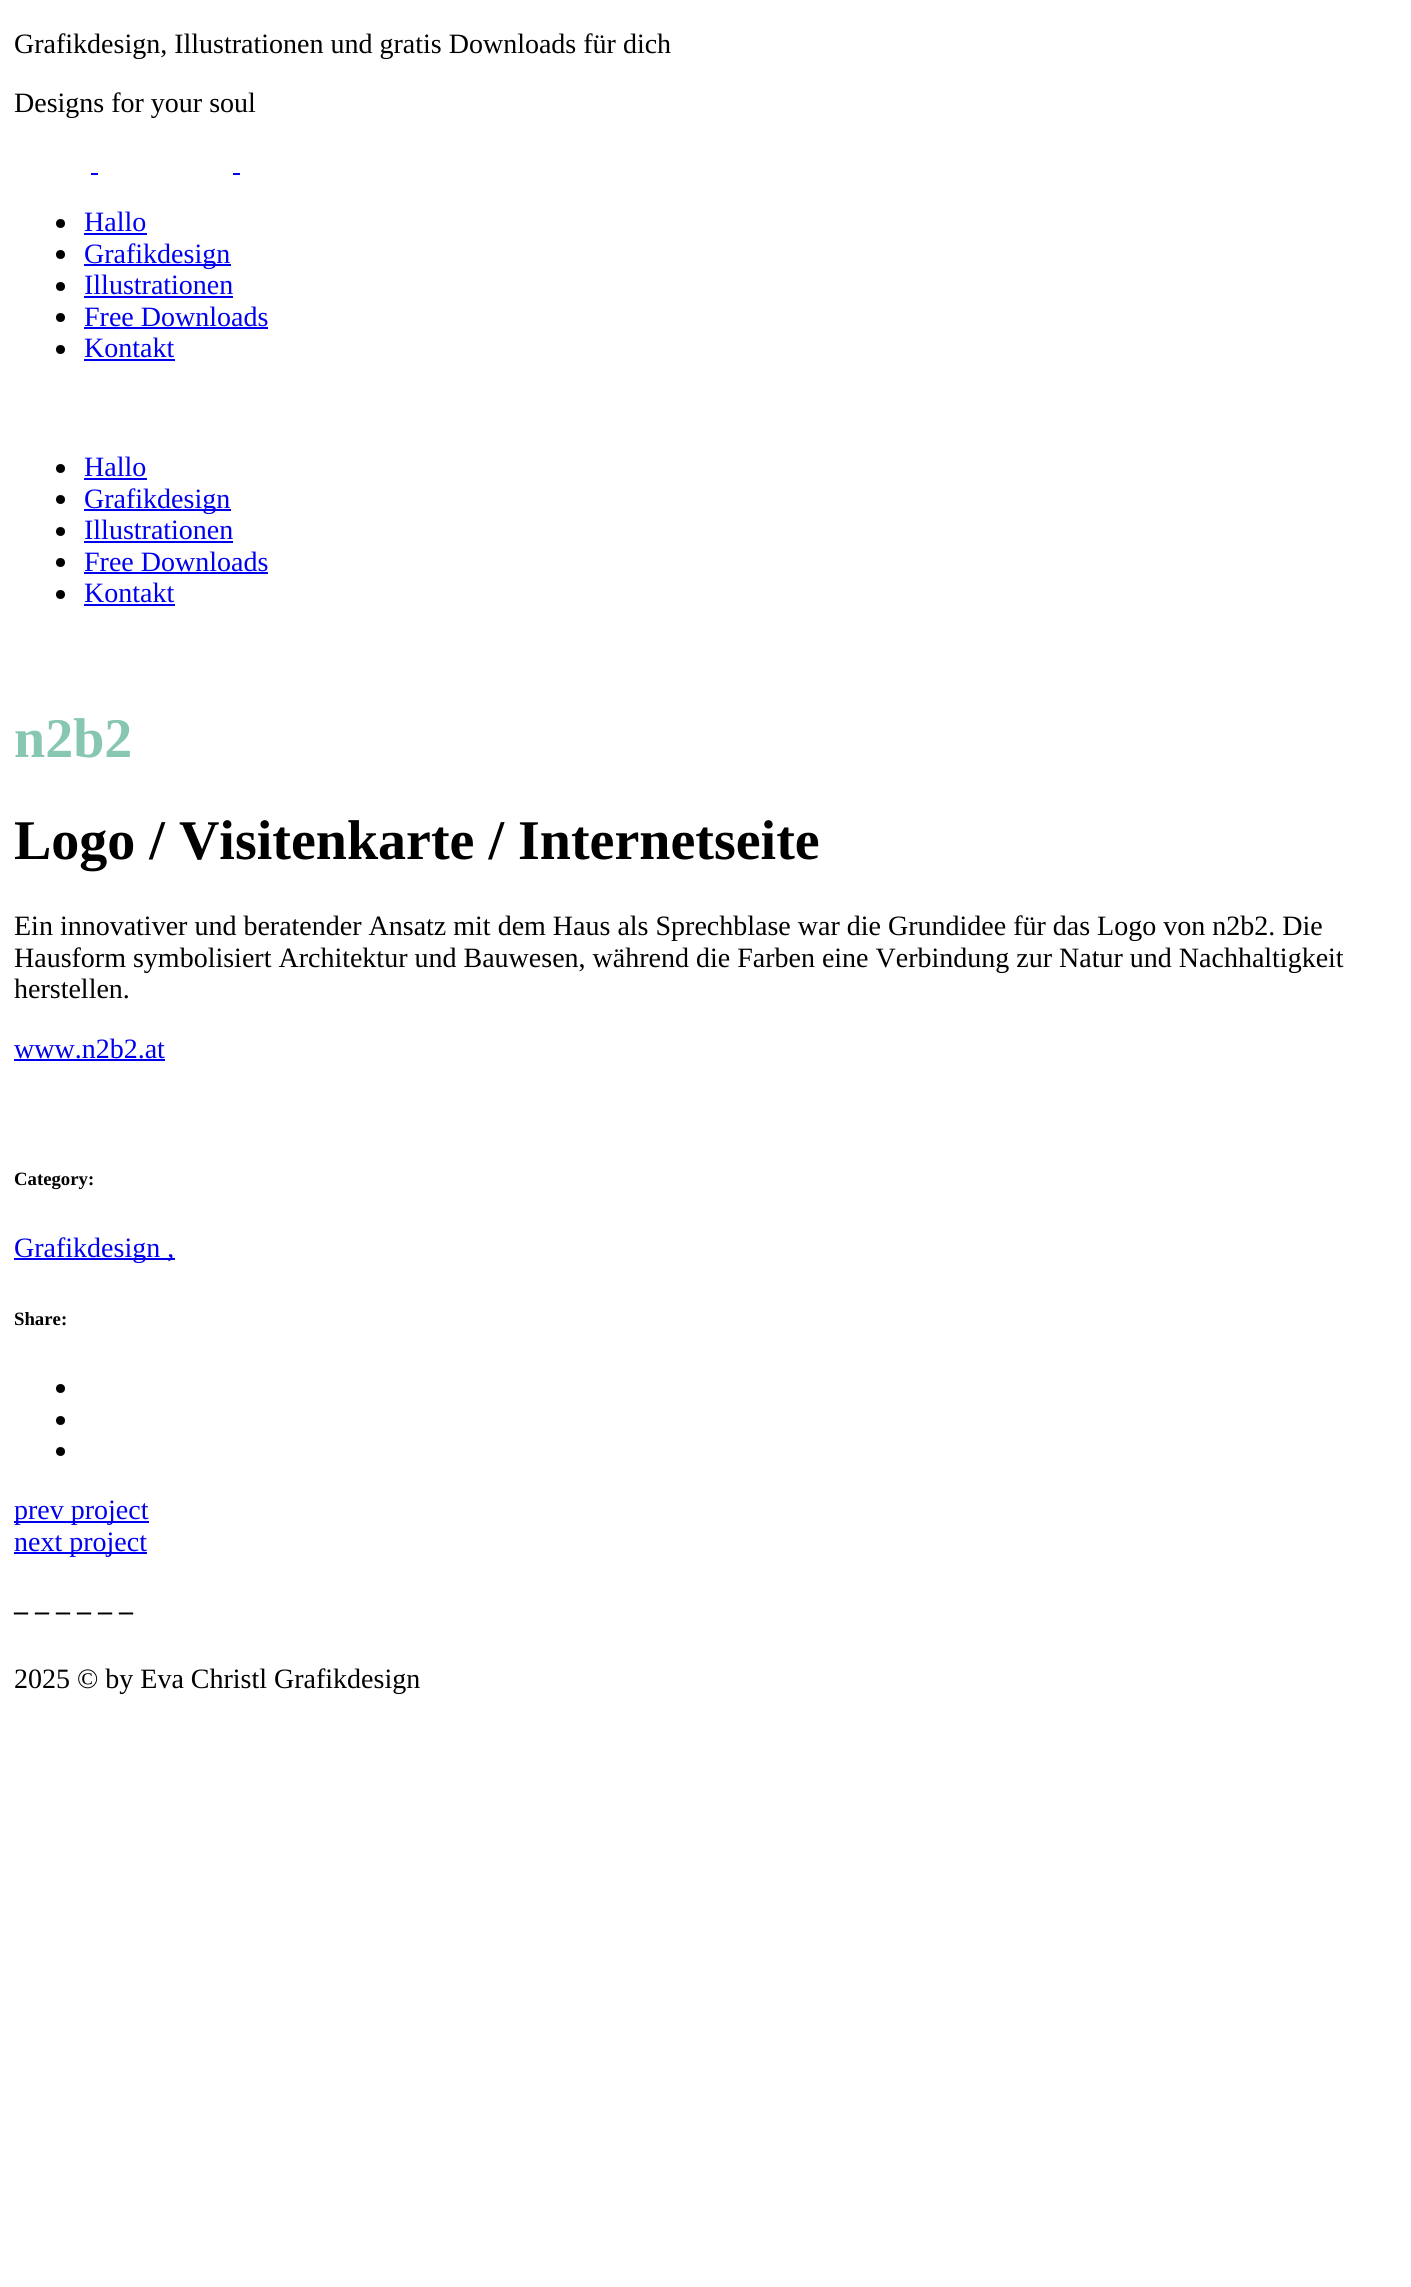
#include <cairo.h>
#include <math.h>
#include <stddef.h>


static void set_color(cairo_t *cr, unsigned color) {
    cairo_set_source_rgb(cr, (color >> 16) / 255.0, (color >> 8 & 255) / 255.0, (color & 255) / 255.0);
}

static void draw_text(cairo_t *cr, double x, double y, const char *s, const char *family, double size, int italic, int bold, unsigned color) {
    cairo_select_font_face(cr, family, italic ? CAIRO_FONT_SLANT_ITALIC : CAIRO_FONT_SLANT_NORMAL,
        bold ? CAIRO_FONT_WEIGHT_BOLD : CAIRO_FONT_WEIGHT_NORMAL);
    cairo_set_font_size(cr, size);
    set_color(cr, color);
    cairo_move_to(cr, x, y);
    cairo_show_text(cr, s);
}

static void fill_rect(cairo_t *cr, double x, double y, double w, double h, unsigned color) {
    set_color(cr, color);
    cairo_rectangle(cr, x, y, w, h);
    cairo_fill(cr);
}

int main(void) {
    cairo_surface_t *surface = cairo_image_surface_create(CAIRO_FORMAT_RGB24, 1411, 2287);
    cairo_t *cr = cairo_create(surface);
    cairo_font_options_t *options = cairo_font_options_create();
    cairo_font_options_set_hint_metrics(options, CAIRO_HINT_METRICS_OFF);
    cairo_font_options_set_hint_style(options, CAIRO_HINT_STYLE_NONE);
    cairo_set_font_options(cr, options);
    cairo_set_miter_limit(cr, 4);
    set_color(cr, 0xFFFFFF);
    cairo_paint(cr);
    draw_text(cr, 14, 53, "Grafikdesign, Illustrationen und gratis Downloads für dich", "Liberation Serif", 28, 0, 0, 0x000000);
    draw_text(cr, 14, 112, "Designs for your soul", "Liberation Serif", 28, 0, 0, 0x000000);
    fill_rect(cr, 91, 173, 7, 2, 0x0000EE);
    fill_rect(cr, 233, 173, 7, 2, 0x0000EE);
    set_color(cr, 0x000000);
    cairo_new_path(cr);
    cairo_arc(cr, 60.5, 223.5, 4.5, 0, 2 * M_PI);
    cairo_fill(cr);
    draw_text(cr, 84, 231, "Hallo", "Liberation Serif", 28, 0, 0, 0x0000EE);
    fill_rect(cr, 84, 233, 63, 2, 0x0000EE);
    set_color(cr, 0x000000);
    cairo_new_path(cr);
    cairo_arc(cr, 60.5, 254.5, 4.5, 0, 2 * M_PI);
    cairo_fill(cr);
    fill_rect(cr, 84, 264, 147, 2, 0x0000EE);
    draw_text(cr, 84, 263, "Grafikdesign", "Liberation Serif", 28, 0, 0, 0x0000EE);
    set_color(cr, 0x000000);
    cairo_new_path(cr);
    cairo_arc(cr, 60.5, 286.5, 4.5, 0, 2 * M_PI);
    cairo_fill(cr);
    draw_text(cr, 84, 294, "Illustrationen", "Liberation Serif", 28, 0, 0, 0x0000EE);
    fill_rect(cr, 84, 296, 149, 2, 0x0000EE);
    set_color(cr, 0x000000);
    cairo_new_path(cr);
    cairo_arc(cr, 60.5, 317.5, 4.5, 0, 2 * M_PI);
    cairo_fill(cr);
    draw_text(cr, 84, 326, "Free Downloads", "Liberation Serif", 28, 0, 0, 0x0000EE);
    fill_rect(cr, 84, 327, 184, 2, 0x0000EE);
    set_color(cr, 0x000000);
    cairo_new_path(cr);
    cairo_arc(cr, 60.5, 349.5, 4.5, 0, 2 * M_PI);
    cairo_fill(cr);
    draw_text(cr, 84, 357, "Kontakt", "Liberation Serif", 28, 0, 0, 0x0000EE);
    fill_rect(cr, 84, 359, 91, 2, 0x0000EE);
    set_color(cr, 0x000000);
    cairo_new_path(cr);
    cairo_arc(cr, 60.5, 468.5, 4.5, 0, 2 * M_PI);
    cairo_fill(cr);
    draw_text(cr, 84, 476, "Hallo", "Liberation Serif", 28, 0, 0, 0x0000EE);
    fill_rect(cr, 84, 478, 63, 2, 0x0000EE);
    set_color(cr, 0x000000);
    cairo_new_path(cr);
    cairo_arc(cr, 60.5, 499.5, 4.5, 0, 2 * M_PI);
    cairo_fill(cr);
    fill_rect(cr, 84, 509, 147, 2, 0x0000EE);
    draw_text(cr, 84, 508, "Grafikdesign", "Liberation Serif", 28, 0, 0, 0x0000EE);
    set_color(cr, 0x000000);
    cairo_new_path(cr);
    cairo_arc(cr, 60.5, 531.5, 4.5, 0, 2 * M_PI);
    cairo_fill(cr);
    draw_text(cr, 84, 539, "Illustrationen", "Liberation Serif", 28, 0, 0, 0x0000EE);
    fill_rect(cr, 84, 541, 149, 2, 0x0000EE);
    set_color(cr, 0x000000);
    cairo_new_path(cr);
    cairo_arc(cr, 60.5, 562.5, 4.5, 0, 2 * M_PI);
    cairo_fill(cr);
    draw_text(cr, 84, 571, "Free Downloads", "Liberation Serif", 28, 0, 0, 0x0000EE);
    fill_rect(cr, 84, 572, 184, 2, 0x0000EE);
    set_color(cr, 0x000000);
    cairo_new_path(cr);
    cairo_arc(cr, 60.5, 594.5, 4.5, 0, 2 * M_PI);
    cairo_fill(cr);
    draw_text(cr, 84, 602, "Kontakt", "Liberation Serif", 28, 0, 0, 0x0000EE);
    fill_rect(cr, 84, 604, 91, 2, 0x0000EE);
    draw_text(cr, 14, 757, "n2b2", "Liberation Serif", 56, 0, 1, 0x87C6B1);
    draw_text(cr, 14, 859, "Logo / Visitenkarte / Internetseite", "Liberation Serif", 56, 0, 1, 0x000000);
    draw_text(cr, 14, 935, "Ein innovativer und beratender Ansatz mit dem Haus als Sprechblase war die Grundidee für das Logo von n2b2. Die", "Liberation Serif", 28, 0, 0, 0x000000);
    draw_text(cr, 14, 967, "Hausform symbolisiert Architektur und Bauwesen, während die Farben eine Verbindung zur Natur und Nachhaltigkeit", "Liberation Serif", 28, 0, 0, 0x000000);
    draw_text(cr, 14, 998, "herstellen.", "Liberation Serif", 28, 0, 0, 0x000000);
    draw_text(cr, 14, 1058, "www.n2b2.at", "Liberation Serif", 28, 0, 0, 0x0000EE);
    fill_rect(cr, 14, 1059, 151, 2, 0x0000EE);
    draw_text(cr, 14, 1185, "Category:", "Liberation Serif", 18.75, 0, 1, 0x000000);
    fill_rect(cr, 14, 1258, 161, 2, 0x0000EE);
    draw_text(cr, 14, 1257, "Grafikdesign ,", "Liberation Serif", 28, 0, 0, 0x0000EE);
    draw_text(cr, 14, 1325, "Share:", "Liberation Serif", 18.75, 0, 1, 0x000000);
    cairo_new_path(cr);
    cairo_arc(cr, 60.5, 1388.5, 4.5, 0, 2 * M_PI);
    cairo_fill(cr);
    cairo_arc(cr, 60.5, 1420.5, 4.5, 0, 2 * M_PI);
    cairo_fill(cr);
    cairo_arc(cr, 60.5, 1451.5, 4.5, 0, 2 * M_PI);
    cairo_fill(cr);
    fill_rect(cr, 14, 1521, 135, 2, 0x0000EE);
    draw_text(cr, 14, 1519, "prev project", "Liberation Serif", 28, 0, 0, 0x0000EE);
    fill_rect(cr, 14, 1552, 133, 2, 0x0000EE);
    draw_text(cr, 14, 1551, "next project", "Liberation Serif", 28, 0, 0, 0x0000EE);
    draw_text(cr, 14, 1620, "– – – – – –", "Liberation Serif", 28, 0, 1, 0x000000);
    draw_text(cr, 14, 1688, "2025 © by Eva Christl Grafikdesign", "Liberation Serif", 28, 0, 0, 0x000000);
    cairo_surface_write_to_png(surface, "output.png");
    cairo_font_options_destroy(options);
    cairo_destroy(cr);
    cairo_surface_destroy(surface);
    return 0;
}
